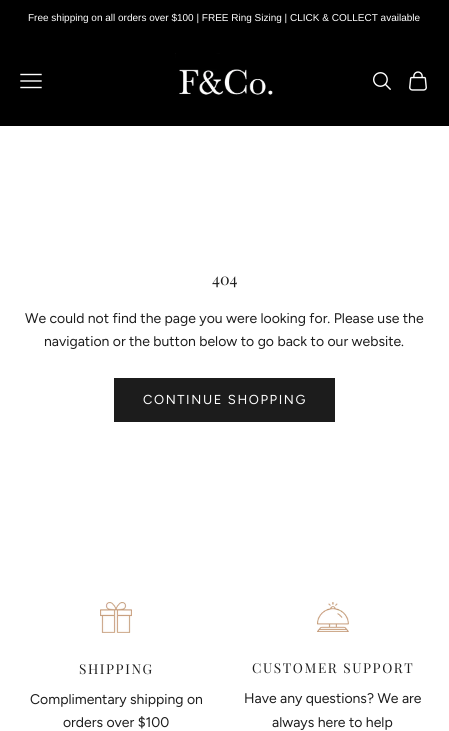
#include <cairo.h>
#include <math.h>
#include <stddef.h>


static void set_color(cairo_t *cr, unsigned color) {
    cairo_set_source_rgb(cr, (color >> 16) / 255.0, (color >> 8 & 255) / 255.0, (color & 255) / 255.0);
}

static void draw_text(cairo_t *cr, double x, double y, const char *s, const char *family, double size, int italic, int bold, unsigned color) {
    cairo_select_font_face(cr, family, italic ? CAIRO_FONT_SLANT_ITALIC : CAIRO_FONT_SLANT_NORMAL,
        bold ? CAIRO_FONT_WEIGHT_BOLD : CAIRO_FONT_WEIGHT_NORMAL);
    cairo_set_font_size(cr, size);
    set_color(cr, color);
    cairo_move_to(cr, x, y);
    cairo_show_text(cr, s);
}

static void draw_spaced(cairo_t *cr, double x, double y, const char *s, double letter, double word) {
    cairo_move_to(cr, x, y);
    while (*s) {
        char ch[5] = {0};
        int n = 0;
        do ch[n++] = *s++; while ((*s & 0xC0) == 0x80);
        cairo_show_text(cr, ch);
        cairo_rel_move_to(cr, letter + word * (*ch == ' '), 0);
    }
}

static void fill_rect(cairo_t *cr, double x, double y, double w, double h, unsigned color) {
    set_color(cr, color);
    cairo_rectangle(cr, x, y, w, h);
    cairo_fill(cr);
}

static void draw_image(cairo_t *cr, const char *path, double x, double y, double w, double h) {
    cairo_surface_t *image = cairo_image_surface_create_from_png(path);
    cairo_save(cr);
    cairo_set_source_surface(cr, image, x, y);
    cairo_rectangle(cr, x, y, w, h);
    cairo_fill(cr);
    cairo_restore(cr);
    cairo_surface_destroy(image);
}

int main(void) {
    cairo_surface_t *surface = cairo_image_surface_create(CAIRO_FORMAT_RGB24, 449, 731);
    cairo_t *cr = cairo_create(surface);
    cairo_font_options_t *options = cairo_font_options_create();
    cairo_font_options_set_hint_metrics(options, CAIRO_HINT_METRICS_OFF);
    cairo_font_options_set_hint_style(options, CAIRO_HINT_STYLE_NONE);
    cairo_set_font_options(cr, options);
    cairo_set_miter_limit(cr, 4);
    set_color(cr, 0xFFFFFF);
    cairo_paint(cr);
    fill_rect(cr, 0, 0, 449, 126, 0x000000);
    draw_text(cr, 28, 21, "Free shipping on all orders over $100 | FREE Ring Sizing | CLICK & COLLECT available", "Liberation Sans", 10, 0, 0, 0xFFFFFF);
    cairo_new_path(cr);
    cairo_move_to(cr, 21, 87.5);
    cairo_line_to(cr, 41, 87.5);
    cairo_move_to(cr, 21, 81);
    cairo_line_to(cr, 41, 81);
    cairo_move_to(cr, 21, 74.5);
    cairo_line_to(cr, 41, 74.5);
    cairo_set_line_width(cr, 1.4);
    cairo_set_line_cap(cr, CAIRO_LINE_CAP_SQUARE);
    cairo_stroke(cr);
    draw_image(cr, "assets/img1.png", 175, 53, 98, 42);
    draw_image(cr, "assets/img2.png", 373, 72, 18, 18);
    draw_image(cr, "assets/img3.png", 409, 71, 18, 20);
    draw_text(cr, 212, 285, "404", "Playfair Display", 16, 0, 0, 0x1C1C1C);
    draw_text(cr, 25, 323, "We could not find the page you were looking for. Please use the", "Figtree", 14, 0, 0, 0x1C1C1C);
    draw_text(cr, 44, 346, "navigation or the button below to go back to our website.", "Figtree", 14, 0, 0, 0x1C1C1C);
    cairo_rectangle(cr, 114.5, 378.5, 220, 43);
    cairo_fill_preserve(cr);
    cairo_set_line_width(cr, 1);
    cairo_set_line_cap(cr, CAIRO_LINE_CAP_BUTT);
    cairo_stroke(cr);
    cairo_set_font_size(cr, 13);
    set_color(cr, 0xFFFFFF);
    draw_spaced(cr, 143, 404, "CONTINUE SHOPPING", 1.6, 0);
    draw_image(cr, "assets/img4.png", 100, 602, 32, 31);
    cairo_select_font_face(cr, "Playfair Display", CAIRO_FONT_SLANT_NORMAL, CAIRO_FONT_WEIGHT_NORMAL);
    cairo_set_font_size(cr, 13.6);
    set_color(cr, 0x1C1C1C);
    draw_spaced(cr, 79, 674, "SHIPPING", 1.6, 0);
    draw_text(cr, 30, 704, "Complimentary shipping on", "Figtree", 14, 0, 0, 0x1C1C1C);
    draw_text(cr, 63, 727, "orders over $100", "Figtree", 14, 0, 0, 0x1C1C1C);
    draw_image(cr, "assets/img5.png", 317, 602, 32, 30);
    cairo_select_font_face(cr, "Playfair Display", CAIRO_FONT_SLANT_NORMAL, CAIRO_FONT_WEIGHT_NORMAL);
    cairo_set_font_size(cr, 13.6);
    draw_spaced(cr, 252, 673, "CUSTOMER SUPPORT", 1.6, 0);
    draw_text(cr, 244, 703, "Have any questions? We are", "Figtree", 14, 0, 0, 0x1C1C1C);
    draw_text(cr, 272, 727, "always here to help", "Figtree", 14, 0, 0, 0x1C1C1C);
    cairo_surface_write_to_png(surface, "output.png");
    cairo_font_options_destroy(options);
    cairo_destroy(cr);
    cairo_surface_destroy(surface);
    return 0;
}
